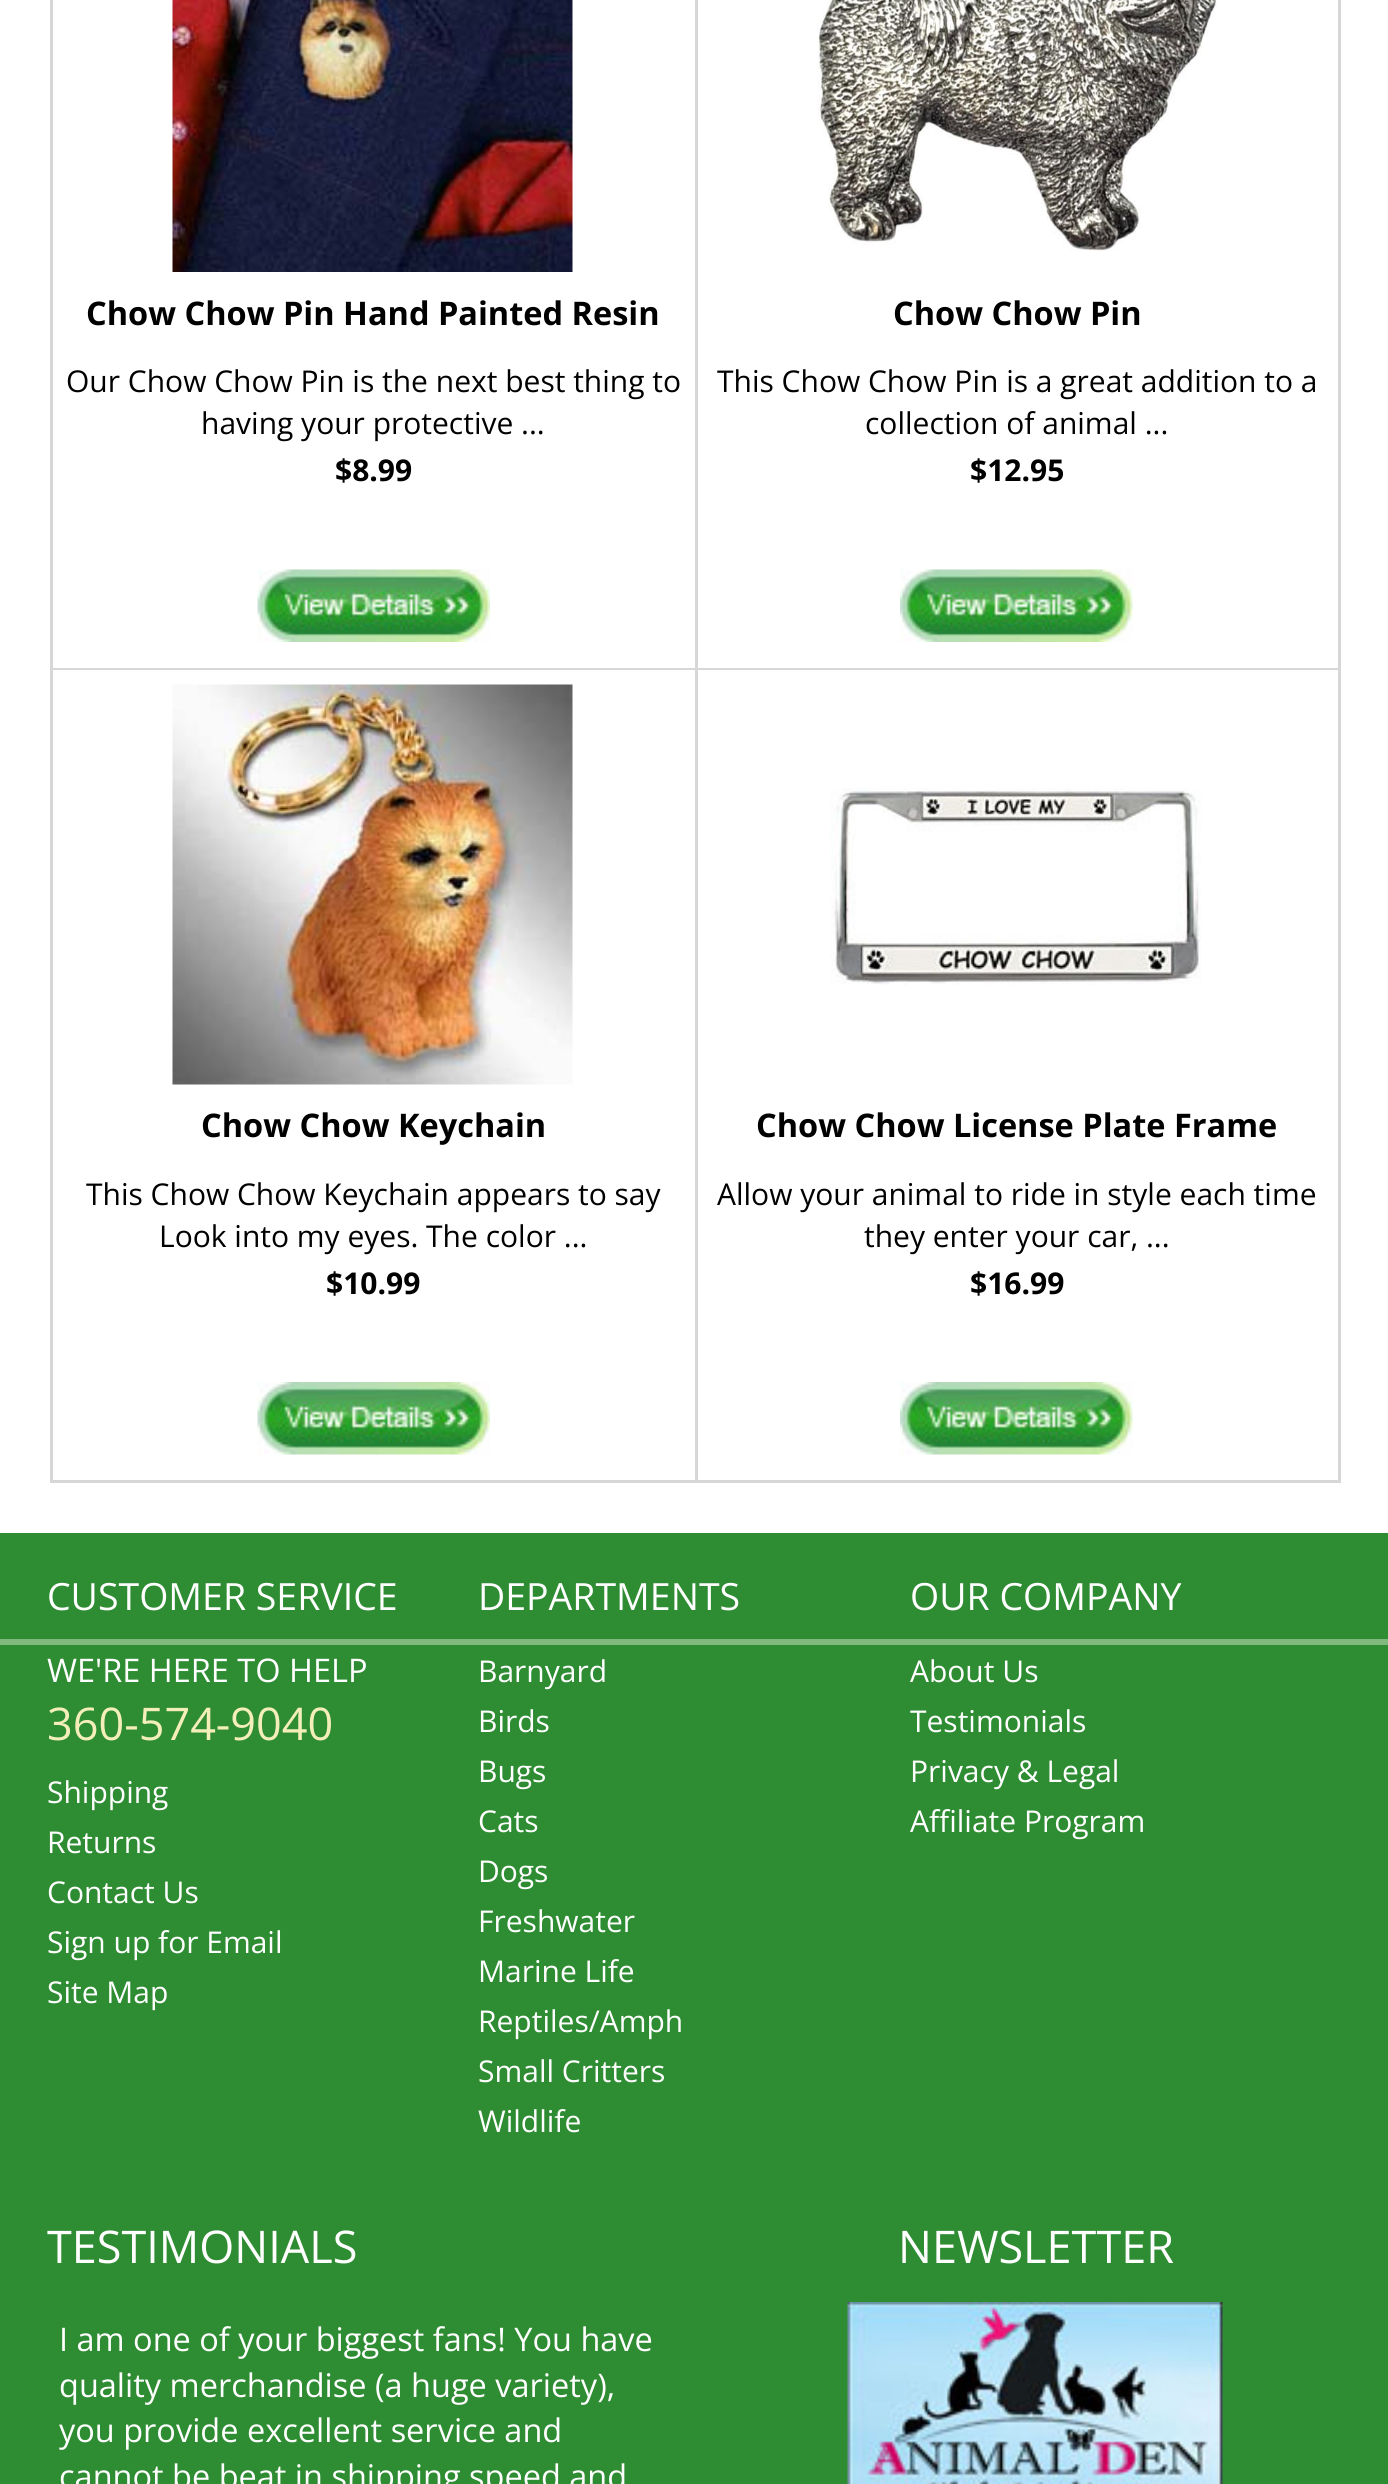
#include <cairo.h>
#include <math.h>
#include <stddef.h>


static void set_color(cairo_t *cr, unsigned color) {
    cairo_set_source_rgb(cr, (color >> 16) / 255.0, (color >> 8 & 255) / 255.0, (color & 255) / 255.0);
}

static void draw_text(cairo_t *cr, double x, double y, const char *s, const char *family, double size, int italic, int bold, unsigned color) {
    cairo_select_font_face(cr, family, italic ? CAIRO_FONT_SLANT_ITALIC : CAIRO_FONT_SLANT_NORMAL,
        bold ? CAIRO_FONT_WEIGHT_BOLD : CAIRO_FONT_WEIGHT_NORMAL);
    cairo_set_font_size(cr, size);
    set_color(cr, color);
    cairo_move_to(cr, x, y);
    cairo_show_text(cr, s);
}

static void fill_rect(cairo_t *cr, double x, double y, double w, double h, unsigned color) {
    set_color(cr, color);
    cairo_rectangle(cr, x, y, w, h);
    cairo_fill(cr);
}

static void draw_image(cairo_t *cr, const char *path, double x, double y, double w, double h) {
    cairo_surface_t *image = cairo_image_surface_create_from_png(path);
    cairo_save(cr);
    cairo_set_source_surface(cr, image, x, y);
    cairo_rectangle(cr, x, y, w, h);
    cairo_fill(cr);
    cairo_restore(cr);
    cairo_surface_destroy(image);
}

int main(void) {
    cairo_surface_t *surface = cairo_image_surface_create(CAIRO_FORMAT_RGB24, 1388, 2484);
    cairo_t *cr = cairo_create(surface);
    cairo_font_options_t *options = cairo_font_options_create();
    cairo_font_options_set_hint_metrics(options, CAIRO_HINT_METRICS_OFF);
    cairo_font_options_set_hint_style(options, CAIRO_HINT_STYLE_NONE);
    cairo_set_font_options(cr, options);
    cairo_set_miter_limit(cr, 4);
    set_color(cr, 0xFFFFFF);
    cairo_paint(cr);
    fill_rect(cr, 50, 0, 3, 1483, 0xD7D7D7);
    fill_rect(cr, 695, 0, 3, 1483, 0xD7D7D7);
    fill_rect(cr, 53, 668, 645, 2, 0xD7D7D7);
    draw_image(cr, "assets/img1.png", 172, 0, 401, 272);
    draw_text(cr, 86, 325, "Chow Chow Pin Hand Painted Resin", "Open Sans", 32.5, 0, 1, 0x000000);
    draw_text(cr, 66, 392, "Our Chow Chow Pin is the next best thing to", "Open Sans", 30, 0, 0, 0x000000);
    draw_text(cr, 201, 434, "having your protective ...", "Open Sans", 30, 0, 0, 0x000000);
    draw_text(cr, 335, 481, "$8.99", "Open Sans", 30, 0, 1, 0x000000);
    draw_image(cr, "assets/img2.png", 257, 569, 233, 73);
    fill_rect(cr, 1338, 0, 3, 1483, 0xD7D7D7);
    fill_rect(cr, 698, 668, 642, 2, 0xD7D7D7);
    draw_image(cr, "assets/img3.png", 817, 0, 401, 251);
    draw_text(cr, 893, 325, "Chow Chow Pin", "Open Sans", 32.5, 0, 1, 0x000000);
    draw_text(cr, 717, 392, "This Chow Chow Pin is a great addition to a", "Open Sans", 30, 0, 0, 0x000000);
    draw_text(cr, 865, 434, "collection of animal ...", "Open Sans", 30, 0, 0, 0x000000);
    draw_text(cr, 970, 481, "$12.95", "Open Sans", 30, 0, 1, 0x000000);
    draw_image(cr, "assets/img4.png", 900, 569, 233, 73);
    fill_rect(cr, 53, 1480, 1287, 3, 0xD7D7D7);
    draw_image(cr, "assets/img5.png", 172, 684, 401, 401);
    draw_text(cr, 201, 1137, "Chow Chow Keychain", "Open Sans", 32.5, 0, 1, 0x000000);
    draw_text(cr, 86, 1205, "This Chow Chow Keychain appears to say", "Open Sans", 30, 0, 0, 0x000000);
    draw_text(cr, 159, 1247, "Look into my eyes. The color ...", "Open Sans", 30, 0, 0, 0x000000);
    draw_text(cr, 326, 1294, "$10.99", "Open Sans", 30, 0, 1, 0x000000);
    draw_image(cr, "assets/img6.png", 257, 1382, 233, 73);
    draw_image(cr, "assets/img7.png", 830, 788, 371, 197);
    draw_text(cr, 756, 1137, "Chow Chow License Plate Frame", "Open Sans", 32.5, 0, 1, 0x000000);
    draw_text(cr, 717, 1205, "Allow your animal to ride in style each time", "Open Sans", 30, 0, 0, 0x000000);
    draw_text(cr, 864, 1247, "they enter your car, ...", "Open Sans", 30, 0, 0, 0x000000);
    draw_text(cr, 970, 1294, "$16.99", "Open Sans", 30, 0, 1, 0x000000);
    draw_image(cr, "assets/img8.png", 900, 1382, 233, 73);
    fill_rect(cr, 0, 1533, 1388, 951, 0x2E8C32);
    fill_rect(cr, 0, 1639, 1388, 6, 0x7FB97E);
    draw_text(cr, 47, 1610, "CUSTOMER SERVICE", "Open Sans", 37.5, 0, 0, 0xFFFFFF);
    draw_text(cr, 47, 1682, "WE'RE HERE TO HELP", "Open Sans", 32.5, 0, 0, 0xFFFFFF);
    draw_text(cr, 47, 1740, "360-574-9040", "Open Sans", 45, 0, 0, 0xF4EFBA);
    draw_text(cr, 47, 1803, "Shipping", "Open Sans", 30, 0, 0, 0xFFFFFF);
    draw_text(cr, 47, 1853, "Returns", "Open Sans", 30, 0, 0, 0xFFFFFF);
    draw_text(cr, 47, 1903, "Contact Us", "Open Sans", 30, 0, 0, 0xFFFFFF);
    draw_text(cr, 47, 1953, "Sign up for Email", "Open Sans", 30, 0, 0, 0xFFFFFF);
    draw_text(cr, 47, 2003, "Site Map", "Open Sans", 30, 0, 0, 0xFFFFFF);
    draw_text(cr, 478, 1610, "DEPARTMENTS", "Open Sans", 37.5, 0, 0, 0xFFFFFF);
    draw_text(cr, 478, 1682, "Barnyard", "Open Sans", 30, 0, 0, 0xFFFFFF);
    draw_text(cr, 478, 1732, "Birds", "Open Sans", 30, 0, 0, 0xFFFFFF);
    draw_text(cr, 478, 1782, "Bugs", "Open Sans", 30, 0, 0, 0xFFFFFF);
    draw_text(cr, 478, 1832, "Cats", "Open Sans", 30, 0, 0, 0xFFFFFF);
    draw_text(cr, 478, 1882, "Dogs", "Open Sans", 30, 0, 0, 0xFFFFFF);
    draw_text(cr, 478, 1932, "Freshwater", "Open Sans", 30, 0, 0, 0xFFFFFF);
    draw_text(cr, 478, 1982, "Marine Life", "Open Sans", 30, 0, 0, 0xFFFFFF);
    draw_text(cr, 478, 2032, "Reptiles/Amph", "Open Sans", 30, 0, 0, 0xFFFFFF);
    draw_text(cr, 478, 2082, "Small Critters", "Open Sans", 30, 0, 0, 0xFFFFFF);
    draw_text(cr, 478, 2132, "Wildlife", "Open Sans", 30, 0, 0, 0xFFFFFF);
    draw_text(cr, 910, 1610, "OUR COMPANY", "Open Sans", 37.5, 0, 0, 0xFFFFFF);
    draw_text(cr, 910, 1682, "About Us", "Open Sans", 30, 0, 0, 0xFFFFFF);
    draw_text(cr, 910, 1732, "Testimonials", "Open Sans", 30, 0, 0, 0xFFFFFF);
    draw_text(cr, 910, 1782, "Privacy & Legal", "Open Sans", 30, 0, 0, 0xFFFFFF);
    draw_text(cr, 910, 1832, "Affiliate Program", "Open Sans", 30, 0, 0, 0xFFFFFF);
    draw_text(cr, 47, 2263, "TESTIMONIALS", "Open Sans", 45, 0, 0, 0xFFFFFF);
    draw_text(cr, 59, 2351, "I am one of your biggest fans! You have", "Open Sans", 32.5, 0, 0, 0xFFFFFF);
    draw_text(cr, 59, 2397, "quality merchandise (a huge variety),", "Open Sans", 32.5, 0, 0, 0xFFFFFF);
    draw_text(cr, 59, 2442, "you provide excellent service and", "Open Sans", 32.5, 0, 0, 0xFFFFFF);
    draw_text(cr, 59, 2488, "cannot be beat in shipping speed and", "Open Sans", 32.5, 0, 0, 0xFFFFFF);
    draw_text(cr, 898, 2263, "NEWSLETTER", "Open Sans", 45, 0, 0, 0xFFFFFF);
    draw_image(cr, "assets/img9.png", 847, 2302, 376, 182);
    cairo_surface_write_to_png(surface, "output.png");
    cairo_font_options_destroy(options);
    cairo_destroy(cr);
    cairo_surface_destroy(surface);
    return 0;
}
